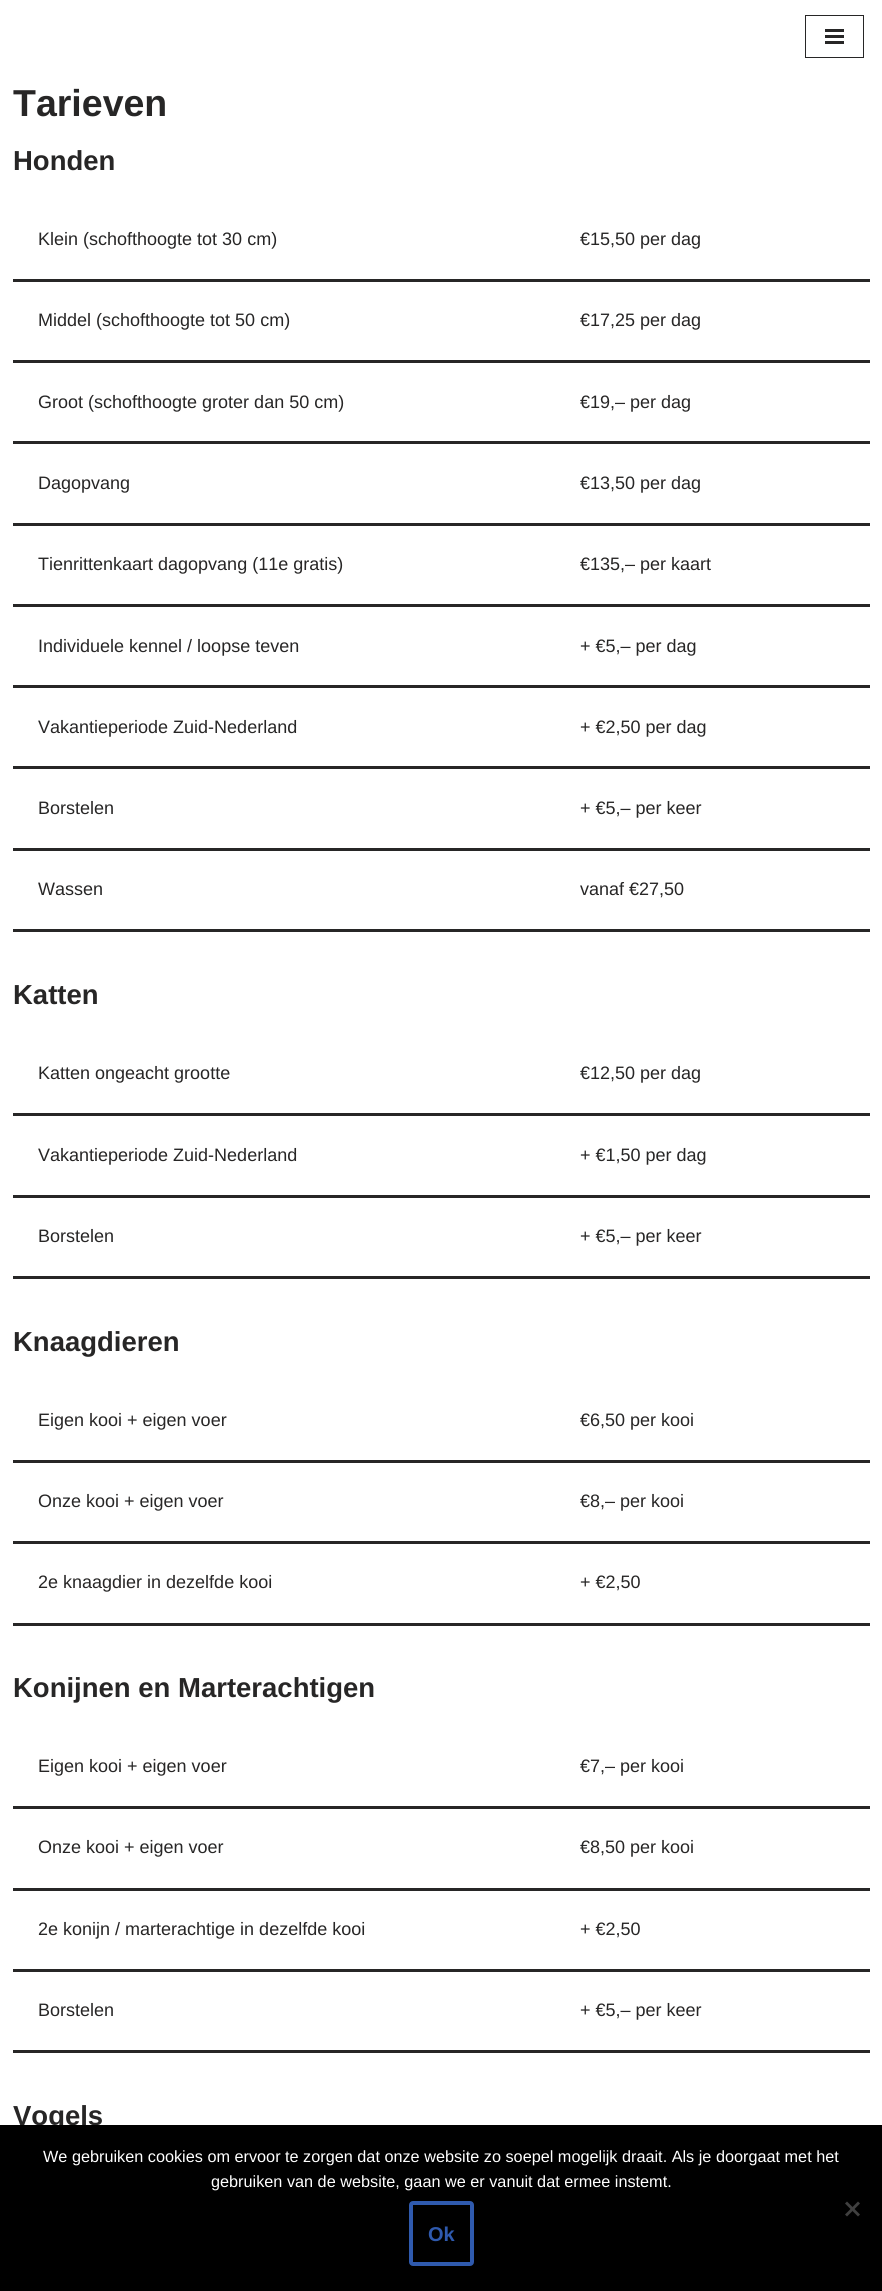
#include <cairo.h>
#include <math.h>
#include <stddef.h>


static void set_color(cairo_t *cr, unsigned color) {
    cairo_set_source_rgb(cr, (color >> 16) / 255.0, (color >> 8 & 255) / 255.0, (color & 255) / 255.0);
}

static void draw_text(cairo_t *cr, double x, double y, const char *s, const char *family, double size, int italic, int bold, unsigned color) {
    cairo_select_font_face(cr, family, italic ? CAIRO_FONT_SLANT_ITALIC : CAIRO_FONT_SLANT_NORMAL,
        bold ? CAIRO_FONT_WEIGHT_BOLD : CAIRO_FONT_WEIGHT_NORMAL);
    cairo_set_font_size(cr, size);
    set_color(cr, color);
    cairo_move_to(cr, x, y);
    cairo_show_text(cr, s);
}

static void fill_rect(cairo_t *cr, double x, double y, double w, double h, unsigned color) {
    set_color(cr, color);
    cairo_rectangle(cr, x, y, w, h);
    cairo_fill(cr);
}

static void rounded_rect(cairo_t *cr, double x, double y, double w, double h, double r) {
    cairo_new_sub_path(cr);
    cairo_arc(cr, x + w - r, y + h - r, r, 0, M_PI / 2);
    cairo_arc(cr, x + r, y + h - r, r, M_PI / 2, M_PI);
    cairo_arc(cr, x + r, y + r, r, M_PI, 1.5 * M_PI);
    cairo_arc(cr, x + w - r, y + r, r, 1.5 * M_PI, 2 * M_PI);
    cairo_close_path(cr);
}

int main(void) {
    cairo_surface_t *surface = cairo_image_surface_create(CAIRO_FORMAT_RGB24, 882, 2291);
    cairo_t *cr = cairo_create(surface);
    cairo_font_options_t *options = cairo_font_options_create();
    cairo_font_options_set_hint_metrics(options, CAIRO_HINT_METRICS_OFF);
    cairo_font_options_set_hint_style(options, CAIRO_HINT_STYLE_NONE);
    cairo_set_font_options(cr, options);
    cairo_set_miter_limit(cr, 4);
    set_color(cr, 0xFFFFFF);
    cairo_paint(cr);
    cairo_rectangle(cr, 805.5, 15.5, 58, 42);
    set_color(cr, 0x272626);
    cairo_set_line_width(cr, 1);
    cairo_stroke(cr);
    fill_rect(cr, 825, 29, 19, 3, 0x272626);
    fill_rect(cr, 825, 35, 19, 3, 0x272626);
    fill_rect(cr, 825, 41, 19, 3, 0x272626);
    draw_text(cr, 13, 116, "Tarieven", "Liberation Sans", 37.5, 0, 1, 0x272626);
    draw_text(cr, 13, 170, "Honden", "Liberation Sans", 27.5, 0, 1, 0x272626);
    fill_rect(cr, 13, 279, 857, 3, 0x272626);
    draw_text(cr, 38, 245, "Klein (schofthoogte tot 30 cm)", "Liberation Sans", 18, 0, 0, 0x272626);
    draw_text(cr, 580, 245, "€15,50 per dag", "Liberation Sans", 18, 0, 0, 0x272626);
    fill_rect(cr, 13, 360, 857, 3, 0x272626);
    draw_text(cr, 38, 326, "Middel (schofthoogte tot 50 cm)", "Liberation Sans", 18, 0, 0, 0x272626);
    draw_text(cr, 580, 326, "€17,25 per dag", "Liberation Sans", 18, 0, 0, 0x272626);
    fill_rect(cr, 13, 441, 857, 3, 0x272626);
    draw_text(cr, 38, 408, "Groot (schofthoogte groter dan 50 cm)", "Liberation Sans", 18, 0, 0, 0x272626);
    draw_text(cr, 580, 408, "€19,– per dag", "Liberation Sans", 18, 0, 0, 0x272626);
    fill_rect(cr, 13, 523, 857, 3, 0x272626);
    draw_text(cr, 38, 489, "Dagopvang", "Liberation Sans", 18, 0, 0, 0x272626);
    draw_text(cr, 580, 489, "€13,50 per dag", "Liberation Sans", 18, 0, 0, 0x272626);
    fill_rect(cr, 13, 604, 857, 3, 0x272626);
    draw_text(cr, 38, 570, "Tienrittenkaart dagopvang (11e gratis)", "Liberation Sans", 18, 0, 0, 0x272626);
    draw_text(cr, 580, 570, "€135,– per kaart", "Liberation Sans", 18, 0, 0, 0x272626);
    fill_rect(cr, 13, 685, 857, 3, 0x272626);
    draw_text(cr, 38, 652, "Individuele kennel / loopse teven", "Liberation Sans", 18, 0, 0, 0x272626);
    draw_text(cr, 580, 652, "+ €5,– per dag", "Liberation Sans", 18, 0, 0, 0x272626);
    fill_rect(cr, 13, 766, 857, 3, 0x272626);
    draw_text(cr, 38, 733, "Vakantieperiode Zuid-Nederland", "Liberation Sans", 18, 0, 0, 0x272626);
    draw_text(cr, 580, 733, "+ €2,50 per dag", "Liberation Sans", 18, 0, 0, 0x272626);
    fill_rect(cr, 13, 848, 857, 3, 0x272626);
    draw_text(cr, 38, 814, "Borstelen", "Liberation Sans", 18, 0, 0, 0x272626);
    draw_text(cr, 580, 814, "+ €5,– per keer", "Liberation Sans", 18, 0, 0, 0x272626);
    fill_rect(cr, 13, 929, 857, 3, 0x272626);
    draw_text(cr, 38, 895, "Wassen", "Liberation Sans", 18, 0, 0, 0x272626);
    draw_text(cr, 580, 895, "vanaf €27,50", "Liberation Sans", 18, 0, 0, 0x272626);
    draw_text(cr, 13, 1004, "Katten", "Liberation Sans", 27.5, 0, 1, 0x272626);
    fill_rect(cr, 13, 1113, 857, 3, 0x272626);
    draw_text(cr, 38, 1079, "Katten ongeacht grootte", "Liberation Sans", 18, 0, 0, 0x272626);
    draw_text(cr, 580, 1079, "€12,50 per dag", "Liberation Sans", 18, 0, 0, 0x272626);
    fill_rect(cr, 13, 1195, 857, 3, 0x272626);
    draw_text(cr, 38, 1161, "Vakantieperiode Zuid-Nederland", "Liberation Sans", 18, 0, 0, 0x272626);
    draw_text(cr, 580, 1161, "+ €1,50 per dag", "Liberation Sans", 18, 0, 0, 0x272626);
    fill_rect(cr, 13, 1276, 857, 3, 0x272626);
    draw_text(cr, 38, 1242, "Borstelen", "Liberation Sans", 18, 0, 0, 0x272626);
    draw_text(cr, 580, 1242, "+ €5,– per keer", "Liberation Sans", 18, 0, 0, 0x272626);
    draw_text(cr, 13, 1351, "Knaagdieren", "Liberation Sans", 27.5, 0, 1, 0x272626);
    fill_rect(cr, 13, 1460, 857, 3, 0x272626);
    draw_text(cr, 38, 1426, "Eigen kooi + eigen voer", "Liberation Sans", 18, 0, 0, 0x272626);
    draw_text(cr, 580, 1426, "€6,50 per kooi", "Liberation Sans", 18, 0, 0, 0x272626);
    fill_rect(cr, 13, 1541, 857, 3, 0x272626);
    draw_text(cr, 38, 1507, "Onze kooi + eigen voer", "Liberation Sans", 18, 0, 0, 0x272626);
    draw_text(cr, 580, 1507, "€8,– per kooi", "Liberation Sans", 18, 0, 0, 0x272626);
    fill_rect(cr, 13, 1623, 857, 3, 0x272626);
    draw_text(cr, 38, 1588, "2e knaagdier in dezelfde kooi", "Liberation Sans", 18, 0, 0, 0x272626);
    draw_text(cr, 580, 1588, "+ €2,50", "Liberation Sans", 18, 0, 0, 0x272626);
    draw_text(cr, 13, 1697, "Konijnen en Marterachtigen", "Liberation Sans", 27.5, 0, 1, 0x272626);
    fill_rect(cr, 13, 1806, 857, 3, 0x272626);
    draw_text(cr, 38, 1772, "Eigen kooi + eigen voer", "Liberation Sans", 18, 0, 0, 0x272626);
    draw_text(cr, 580, 1772, "€7,– per kooi", "Liberation Sans", 18, 0, 0, 0x272626);
    fill_rect(cr, 13, 1888, 857, 3, 0x272626);
    draw_text(cr, 38, 1853, "Onze kooi + eigen voer", "Liberation Sans", 18, 0, 0, 0x272626);
    draw_text(cr, 580, 1853, "€8,50 per kooi", "Liberation Sans", 18, 0, 0, 0x272626);
    fill_rect(cr, 13, 1969, 857, 3, 0x272626);
    draw_text(cr, 38, 1935, "2e konijn / marterachtige in dezelfde kooi", "Liberation Sans", 18, 0, 0, 0x272626);
    draw_text(cr, 580, 1935, "+ €2,50", "Liberation Sans", 18, 0, 0, 0x272626);
    fill_rect(cr, 13, 2050, 857, 3, 0x272626);
    draw_text(cr, 38, 2016, "Borstelen", "Liberation Sans", 18, 0, 0, 0x272626);
    draw_text(cr, 580, 2016, "+ €5,– per keer", "Liberation Sans", 18, 0, 0, 0x272626);
    draw_text(cr, 13, 2125, "Vogels", "Liberation Sans", 27.5, 0, 1, 0x272626);
    fill_rect(cr, 0, 2125, 882, 166, 0x000000);
    draw_text(cr, 43, 2162, "We gebruiken cookies om ervoor te zorgen dat onze website zo soepel mogelijk draait. Als je doorgaat met het", "Liberation Sans", 16.25, 0, 0, 0xFFFFFF);
    draw_text(cr, 211, 2187, "gebruiken van de website, gaan we er vanuit dat ermee instemt.", "Liberation Sans", 16.25, 0, 0, 0xFFFFFF);
    set_color(cr, 0x404040);
    cairo_new_path(cr);
    cairo_move_to(cr, 858, 2201.5);
    cairo_line_to(cr, 860, 2203.5);
    cairo_line_to(cr, 847, 2216.5);
    cairo_line_to(cr, 845, 2214.5);
    cairo_close_path(cr);
    cairo_fill(cr);
    cairo_new_path(cr);
    cairo_move_to(cr, 845, 2203.5);
    cairo_line_to(cr, 847, 2201.5);
    cairo_line_to(cr, 860, 2214.5);
    cairo_line_to(cr, 858, 2216.5);
    cairo_close_path(cr);
    cairo_fill(cr);
    rounded_rect(cr, 411, 2203, 61, 61, 2);
    set_color(cr, 0x2F5AAE);
    cairo_set_line_width(cr, 4);
    cairo_stroke(cr);
    draw_text(cr, 428, 2241, "Ok", "Liberation Sans", 20, 0, 1, 0x2F5AAE);
    cairo_surface_write_to_png(surface, "output.png");
    cairo_font_options_destroy(options);
    cairo_destroy(cr);
    cairo_surface_destroy(surface);
    return 0;
}
